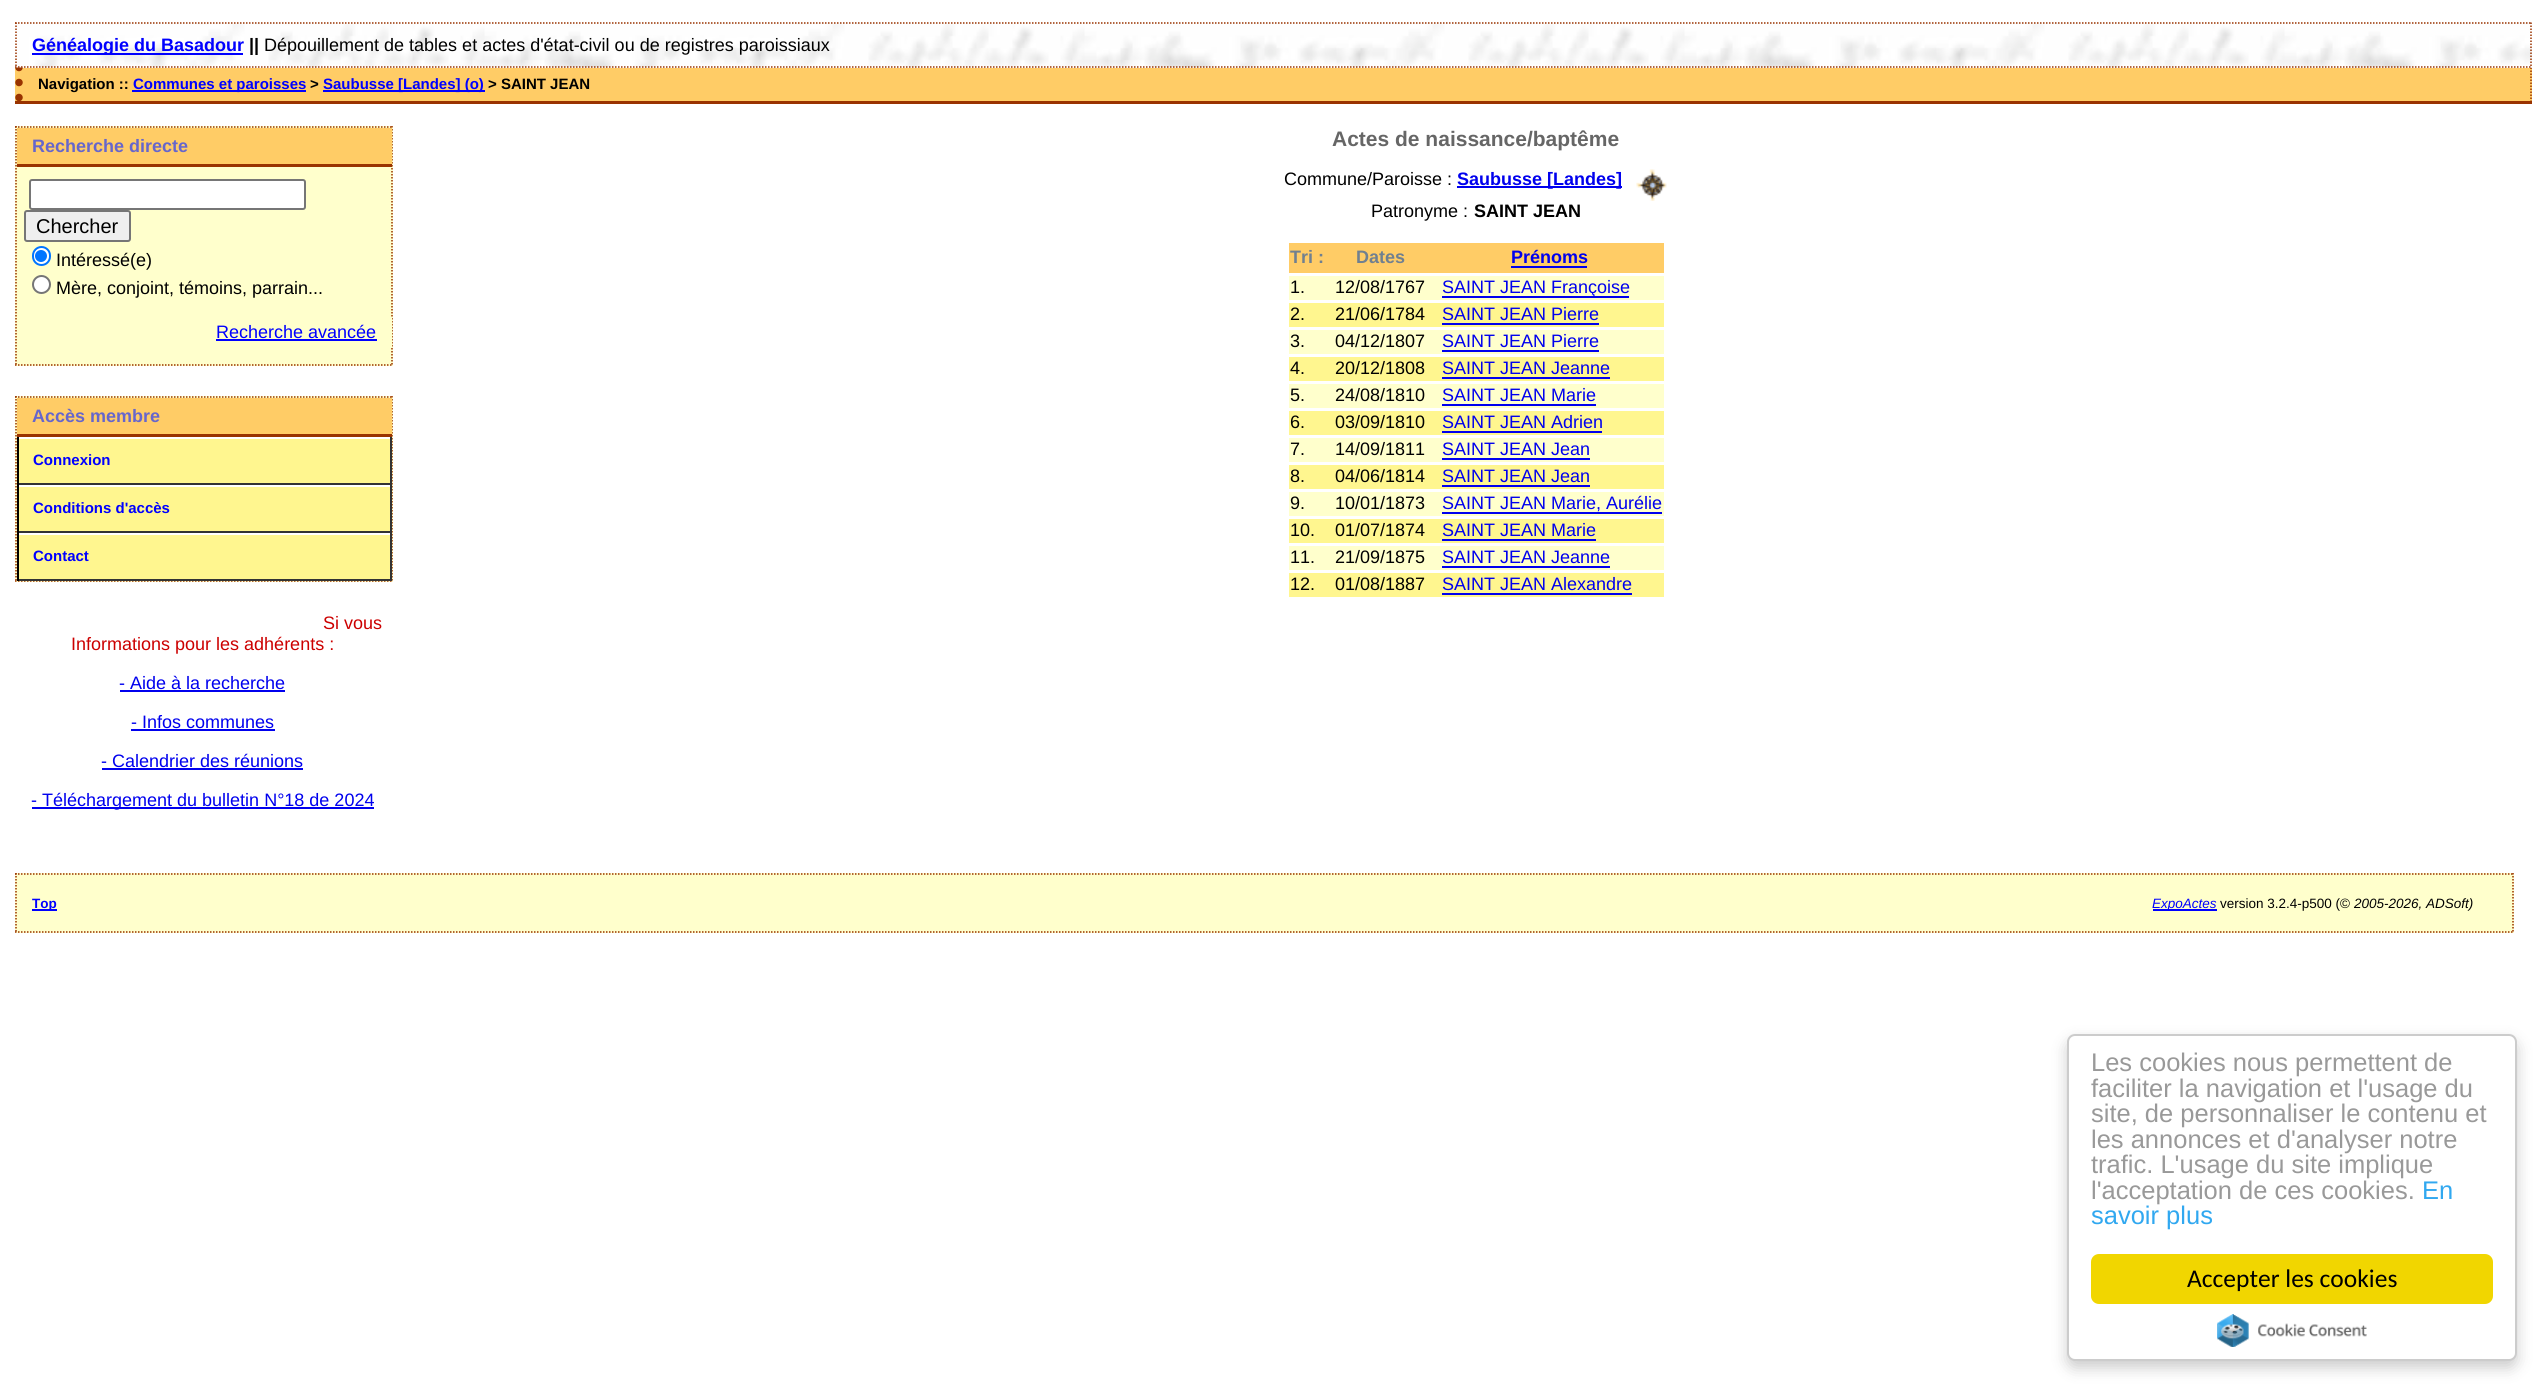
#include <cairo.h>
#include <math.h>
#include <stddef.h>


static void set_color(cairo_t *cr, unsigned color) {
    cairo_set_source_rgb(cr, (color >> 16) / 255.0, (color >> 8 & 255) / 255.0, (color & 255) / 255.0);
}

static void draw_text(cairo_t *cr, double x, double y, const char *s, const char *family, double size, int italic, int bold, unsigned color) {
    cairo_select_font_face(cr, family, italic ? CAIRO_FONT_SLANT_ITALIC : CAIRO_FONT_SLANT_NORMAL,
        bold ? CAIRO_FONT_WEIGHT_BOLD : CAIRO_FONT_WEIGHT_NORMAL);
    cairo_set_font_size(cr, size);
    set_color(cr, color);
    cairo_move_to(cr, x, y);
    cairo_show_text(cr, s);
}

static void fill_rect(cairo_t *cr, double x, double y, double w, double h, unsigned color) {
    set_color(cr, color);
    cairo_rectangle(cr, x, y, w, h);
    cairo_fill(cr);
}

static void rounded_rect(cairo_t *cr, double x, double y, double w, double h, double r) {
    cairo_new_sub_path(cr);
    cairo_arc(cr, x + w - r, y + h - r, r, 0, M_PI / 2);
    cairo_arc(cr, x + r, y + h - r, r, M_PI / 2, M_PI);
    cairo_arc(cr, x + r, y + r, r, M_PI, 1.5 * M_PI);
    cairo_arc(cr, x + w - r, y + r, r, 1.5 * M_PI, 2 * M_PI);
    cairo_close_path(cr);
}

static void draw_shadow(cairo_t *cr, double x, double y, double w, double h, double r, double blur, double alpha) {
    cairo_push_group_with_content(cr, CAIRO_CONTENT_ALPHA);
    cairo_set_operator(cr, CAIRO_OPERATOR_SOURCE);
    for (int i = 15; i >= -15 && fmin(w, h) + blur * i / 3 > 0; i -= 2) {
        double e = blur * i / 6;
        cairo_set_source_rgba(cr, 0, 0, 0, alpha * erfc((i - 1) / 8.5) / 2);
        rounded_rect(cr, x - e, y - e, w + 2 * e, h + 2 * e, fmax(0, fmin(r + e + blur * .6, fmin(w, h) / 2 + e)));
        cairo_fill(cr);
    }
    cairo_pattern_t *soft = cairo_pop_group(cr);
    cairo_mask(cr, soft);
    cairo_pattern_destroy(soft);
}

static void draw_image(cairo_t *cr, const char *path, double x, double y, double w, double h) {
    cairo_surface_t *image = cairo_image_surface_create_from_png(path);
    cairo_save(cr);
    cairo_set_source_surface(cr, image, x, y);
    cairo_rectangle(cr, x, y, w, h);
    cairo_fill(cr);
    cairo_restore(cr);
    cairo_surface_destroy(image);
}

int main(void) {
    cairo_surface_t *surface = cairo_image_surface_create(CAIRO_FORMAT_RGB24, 2547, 1390);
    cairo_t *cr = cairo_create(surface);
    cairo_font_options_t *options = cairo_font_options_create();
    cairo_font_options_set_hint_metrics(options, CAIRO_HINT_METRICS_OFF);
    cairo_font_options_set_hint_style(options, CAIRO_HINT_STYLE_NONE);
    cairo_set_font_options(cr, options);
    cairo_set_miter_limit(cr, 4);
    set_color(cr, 0xFFFFFF);
    cairo_paint(cr);
    fill_rect(cr, 15, 68, 2517, 33, 0xFFCC66);
    cairo_new_path(cr);
    cairo_move_to(cr, 2531, 67.5);
    cairo_line_to(cr, 2531, 103.5);
    set_color(cr, 0x993300);
    cairo_set_line_width(cr, 1.5);
    cairo_set_dash(cr, (double[]){1.5, 1.5}, 2, 0);
    cairo_stroke(cr);
    fill_rect(cr, 15, 101, 2517, 3, 0x993300);
    cairo_new_path(cr);
    cairo_move_to(cr, 19, 67.5);
    cairo_line_to(cr, 19, 103.5);
    cairo_set_line_width(cr, 7.5);
    cairo_set_line_cap(cr, CAIRO_LINE_CAP_ROUND);
    cairo_set_dash(cr, (double[]){0, 15}, 2, 0);
    cairo_stroke(cr);
    draw_image(cr, "assets/img1.png", 15, 22, 2517, 46);
    cairo_new_path(cr);
    cairo_move_to(cr, 15, 23);
    cairo_line_to(cr, 2532, 23);
    cairo_set_line_width(cr, 1.5);
    cairo_set_line_cap(cr, CAIRO_LINE_CAP_BUTT);
    cairo_set_dash(cr, (double[]){1.5, 1.5}, 2, 0);
    cairo_stroke(cr);
    cairo_new_path(cr);
    cairo_move_to(cr, 2531, 22.5);
    cairo_line_to(cr, 2531, 67.5);
    cairo_stroke(cr);
    cairo_new_path(cr);
    cairo_move_to(cr, 15, 67);
    cairo_line_to(cr, 2532, 67);
    cairo_stroke(cr);
    cairo_new_path(cr);
    cairo_move_to(cr, 16, 22.5);
    cairo_line_to(cr, 16, 67.5);
    cairo_stroke(cr);
    fill_rect(cr, 32, 53, 211, 2, 0x0000FF);
    draw_text(cr, 32, 51, "Généalogie du Basadour", "Liberation Sans", 18, 0, 1, 0x0000FF);
    draw_text(cr, 249, 51, "||", "Liberation Sans", 18, 0, 1, 0x000000);
    draw_text(cr, 264, 51, "Dépouillement de tables et actes d'état-civil ou de registres paroissiaux", "Liberation Sans", 18, 0, 0, 0x000000);
    draw_text(cr, 38, 89, "Navigation ::", "Liberation Sans", 15, 0, 1, 0x000000);
    fill_rect(cr, 132, 90, 174, 2, 0x0000FF);
    draw_text(cr, 133, 89, "Communes et paroisses", "Liberation Sans", 15, 0, 1, 0x0000FF);
    draw_text(cr, 310, 89, ">", "Liberation Sans", 15, 0, 1, 0x000000);
    fill_rect(cr, 323, 90, 162, 2, 0x0000FF);
    draw_text(cr, 323, 89, "Saubusse [Landes] (o)", "Liberation Sans", 15, 0, 1, 0x0000FF);
    draw_text(cr, 488, 89, "> SAINT JEAN", "Liberation Sans", 15, 0, 1, 0x000000);
    fill_rect(cr, 15, 126, 378, 240, 0xFFFFCC);
    cairo_new_path(cr);
    cairo_move_to(cr, 15, 127);
    cairo_line_to(cr, 393, 127);
    set_color(cr, 0x993300);
    cairo_stroke(cr);
    cairo_new_path(cr);
    cairo_move_to(cr, 392, 126);
    cairo_line_to(cr, 392, 366);
    cairo_stroke(cr);
    cairo_new_path(cr);
    cairo_move_to(cr, 15, 365);
    cairo_line_to(cr, 393, 365);
    cairo_stroke(cr);
    cairo_new_path(cr);
    cairo_move_to(cr, 16, 126);
    cairo_line_to(cr, 16, 366);
    cairo_stroke(cr);
    fill_rect(cr, 17, 128, 375, 36, 0xFFCC66);
    fill_rect(cr, 17, 164, 375, 3, 0x993300);
    draw_text(cr, 32, 152, "Recherche directe", "Liberation Sans", 18, 0, 1, 0x6666CC);
    set_color(cr, 0xFFFFFF);
    rounded_rect(cr, 30, 180, 275, 29, 2);
    cairo_fill_preserve(cr);
    set_color(cr, 0x767676);
    cairo_set_line_width(cr, 2);
    cairo_set_dash(cr, NULL, 0, 0);
    cairo_stroke(cr);
    set_color(cr, 0xEFEFEF);
    rounded_rect(cr, 25, 211, 105, 30, 2);
    cairo_fill_preserve(cr);
    set_color(cr, 0x767676);
    cairo_stroke(cr);
    draw_text(cr, 36, 233, "Chercher", "Liberation Sans", 20, 0, 0, 0x000000);
    set_color(cr, 0xFFFFFF);
    rounded_rect(cr, 33, 247, 17, 18, 8.5);
    cairo_fill_preserve(cr);
    set_color(cr, 0x0075FF);
    cairo_stroke(cr);
    cairo_arc(cr, 41, 256, 6, 0, 2 * M_PI);
    cairo_fill(cr);
    draw_text(cr, 56, 266, "Intéressé(e)", "Liberation Sans", 18, 0, 0, 0x000000);
    set_color(cr, 0xFFFFFF);
    cairo_new_path(cr);
    cairo_arc(cr, 41.5, 284.5, 8.5, 0, 2 * M_PI);
    cairo_fill_preserve(cr);
    set_color(cr, 0x767676);
    cairo_stroke(cr);
    draw_text(cr, 56, 294, "Mère, conjoint, témoins, parrain...", "Liberation Sans", 18, 0, 0, 0x000000);
    fill_rect(cr, 391, 318, 1, 29, 0xFFFFCC);
    draw_text(cr, 216, 338, "Recherche avancée", "Liberation Sans", 18, 0, 0, 0x0000FF);
    fill_rect(cr, 216, 339, 161, 2, 0x0000FF);
    fill_rect(cr, 15, 396, 378, 186, 0xFFFFCC);
    cairo_new_path(cr);
    cairo_move_to(cr, 15, 397);
    cairo_line_to(cr, 393, 397);
    set_color(cr, 0x993300);
    cairo_set_line_width(cr, 1.5);
    cairo_set_dash(cr, (double[]){1.5, 1.5}, 2, 0);
    cairo_stroke(cr);
    cairo_new_path(cr);
    cairo_move_to(cr, 392, 396);
    cairo_line_to(cr, 392, 582);
    cairo_stroke(cr);
    cairo_new_path(cr);
    cairo_move_to(cr, 15, 581);
    cairo_line_to(cr, 393, 581);
    cairo_stroke(cr);
    cairo_new_path(cr);
    cairo_move_to(cr, 16, 396);
    cairo_line_to(cr, 16, 582);
    cairo_stroke(cr);
    fill_rect(cr, 17, 398, 375, 36, 0xFFCC66);
    fill_rect(cr, 17, 434, 375, 3, 0x993300);
    draw_text(cr, 32, 422, "Accès membre", "Liberation Sans", 18, 0, 1, 0x6666CC);
    fill_rect(cr, 19, 439, 371, 44, 0xFFF68F);
    fill_rect(cr, 17, 437, 375, 2, 0xFFFFFF);
    fill_rect(cr, 390, 437, 2, 48, 0x333333);
    fill_rect(cr, 17, 483, 375, 2, 0x333333);
    fill_rect(cr, 17, 437, 2, 48, 0x000000);
    draw_text(cr, 33, 465, "Connexion", "Liberation Sans", 15, 0, 1, 0x0000FF);
    fill_rect(cr, 19, 487, 371, 44, 0xFFF68F);
    fill_rect(cr, 17, 485, 375, 2, 0xFFFFFF);
    fill_rect(cr, 390, 485, 2, 48, 0x333333);
    fill_rect(cr, 17, 531, 375, 2, 0x333333);
    fill_rect(cr, 17, 485, 2, 48, 0x000000);
    draw_text(cr, 33, 513, "Conditions d'accès", "Liberation Sans", 15, 0, 1, 0x0000FF);
    fill_rect(cr, 19, 535, 371, 44, 0xFFF68F);
    fill_rect(cr, 17, 533, 375, 2, 0xFFFFFF);
    fill_rect(cr, 390, 533, 2, 48, 0x333333);
    fill_rect(cr, 17, 579, 375, 2, 0x333333);
    fill_rect(cr, 17, 533, 2, 48, 0x000000);
    draw_text(cr, 33, 561, "Contact", "Liberation Sans", 15, 0, 1, 0x0000FF);
    draw_text(cr, 323, 629, "Si vous", "Liberation Sans", 18, 0, 0, 0xCC0000);
    draw_text(cr, 71, 650, "Informations pour les adhérents :", "Liberation Sans", 18, 0, 0, 0xCC0000);
    draw_text(cr, 119, 689, "- Aide à la recherche", "Liberation Sans", 18, 0, 0, 0x0000EE);
    fill_rect(cr, 120, 690, 165, 2, 0x0000EE);
    draw_text(cr, 131, 728, "- Infos communes", "Liberation Sans", 18, 0, 0, 0x0000EE);
    fill_rect(cr, 131, 729, 144, 2, 0x0000EE);
    draw_text(cr, 101, 767, "- Calendrier des réunions", "Liberation Sans", 18, 0, 0, 0x0000EE);
    fill_rect(cr, 102, 768, 201, 2, 0x0000EE);
    fill_rect(cr, 32, 807, 342, 2, 0x0000EE);
    draw_text(cr, 31, 806, "- Téléchargement du bulletin N°18 de 2024", "Liberation Sans", 18, 0, 0, 0x0000EE);
    draw_text(cr, 1332, 146, "Actes de naissance/baptême", "Liberation Sans", 21, 0, 1, 0x666666);
    draw_text(cr, 1284, 185, "Commune/Paroisse :", "Liberation Sans", 18, 0, 0, 0x000000);
    fill_rect(cr, 1457, 186, 165, 2, 0x0000EE);
    draw_text(cr, 1457, 185, "Saubusse [Landes]", "Liberation Sans", 18, 0, 1, 0x0000EE);
    draw_image(cr, "assets/img2.png", 1636, 169, 31, 32);
    draw_text(cr, 1371, 217, "Patronyme :", "Liberation Sans", 18, 0, 0, 0x000000);
    draw_text(cr, 1474, 217, "SAINT JEAN", "Liberation Sans", 18, 0, 1, 0x000000);
    fill_rect(cr, 1289, 243, 375, 30, 0xFFCC66);
    draw_text(cr, 1290, 263, "Tri :", "Liberation Sans", 18, 0, 1, 0x708090);
    draw_text(cr, 1356, 263, "Dates", "Liberation Sans", 18, 0, 1, 0x708090);
    draw_text(cr, 1511, 263, "Prénoms", "Liberation Sans", 18, 0, 1, 0x0000EE);
    fill_rect(cr, 1511, 266, 76, 2, 0x0000EE);
    fill_rect(cr, 1289, 276, 375, 24, 0xFFFFCC);
    draw_text(cr, 1290, 293, "1.", "Liberation Sans", 18, 0, 0, 0x000000);
    draw_text(cr, 1335, 293, "12/08/1767", "Liberation Sans", 18, 0, 0, 0x000000);
    fill_rect(cr, 1442, 296, 187, 2, 0x0000EE);
    draw_text(cr, 1442, 293, "SAINT JEAN Françoise", "Liberation Sans", 18, 0, 0, 0x0000EE);
    fill_rect(cr, 1289, 303, 375, 24, 0xFFF68F);
    draw_text(cr, 1290, 320, "2.", "Liberation Sans", 18, 0, 0, 0x000000);
    draw_text(cr, 1335, 320, "21/06/1784", "Liberation Sans", 18, 0, 0, 0x000000);
    draw_text(cr, 1442, 320, "SAINT JEAN Pierre", "Liberation Sans", 18, 0, 0, 0x0000EE);
    fill_rect(cr, 1442, 323, 157, 2, 0x0000EE);
    fill_rect(cr, 1289, 330, 375, 24, 0xFFFFCC);
    draw_text(cr, 1290, 347, "3.", "Liberation Sans", 18, 0, 0, 0x000000);
    draw_text(cr, 1335, 347, "04/12/1807", "Liberation Sans", 18, 0, 0, 0x000000);
    draw_text(cr, 1442, 347, "SAINT JEAN Pierre", "Liberation Sans", 18, 0, 0, 0x0000EE);
    fill_rect(cr, 1442, 350, 157, 2, 0x0000EE);
    fill_rect(cr, 1289, 357, 375, 24, 0xFFF68F);
    draw_text(cr, 1290, 374, "4.", "Liberation Sans", 18, 0, 0, 0x000000);
    draw_text(cr, 1335, 374, "20/12/1808", "Liberation Sans", 18, 0, 0, 0x000000);
    draw_text(cr, 1442, 374, "SAINT JEAN Jeanne", "Liberation Sans", 18, 0, 0, 0x0000EE);
    fill_rect(cr, 1442, 377, 168, 2, 0x0000EE);
    fill_rect(cr, 1289, 384, 375, 24, 0xFFFFCC);
    draw_text(cr, 1290, 401, "5.", "Liberation Sans", 18, 0, 0, 0x000000);
    draw_text(cr, 1335, 401, "24/08/1810", "Liberation Sans", 18, 0, 0, 0x000000);
    draw_text(cr, 1442, 401, "SAINT JEAN Marie", "Liberation Sans", 18, 0, 0, 0x0000EE);
    fill_rect(cr, 1442, 404, 154, 2, 0x0000EE);
    fill_rect(cr, 1289, 411, 375, 24, 0xFFF68F);
    draw_text(cr, 1290, 428, "6.", "Liberation Sans", 18, 0, 0, 0x000000);
    draw_text(cr, 1335, 428, "03/09/1810", "Liberation Sans", 18, 0, 0, 0x000000);
    draw_text(cr, 1442, 428, "SAINT JEAN Adrien", "Liberation Sans", 18, 0, 0, 0x0000EE);
    fill_rect(cr, 1442, 431, 160, 2, 0x0000EE);
    fill_rect(cr, 1289, 438, 375, 24, 0xFFFFCC);
    draw_text(cr, 1290, 455, "7.", "Liberation Sans", 18, 0, 0, 0x000000);
    draw_text(cr, 1335, 455, "14/09/1811", "Liberation Sans", 18, 0, 0, 0x000000);
    draw_text(cr, 1442, 455, "SAINT JEAN Jean", "Liberation Sans", 18, 0, 0, 0x0000EE);
    fill_rect(cr, 1442, 458, 148, 2, 0x0000EE);
    fill_rect(cr, 1289, 465, 375, 24, 0xFFF68F);
    draw_text(cr, 1290, 482, "8.", "Liberation Sans", 18, 0, 0, 0x000000);
    draw_text(cr, 1335, 482, "04/06/1814", "Liberation Sans", 18, 0, 0, 0x000000);
    draw_text(cr, 1442, 482, "SAINT JEAN Jean", "Liberation Sans", 18, 0, 0, 0x0000EE);
    fill_rect(cr, 1442, 485, 148, 2, 0x0000EE);
    fill_rect(cr, 1289, 492, 375, 24, 0xFFFFCC);
    draw_text(cr, 1290, 509, "9.", "Liberation Sans", 18, 0, 0, 0x000000);
    draw_text(cr, 1335, 509, "10/01/1873", "Liberation Sans", 18, 0, 0, 0x000000);
    draw_text(cr, 1442, 509, "SAINT JEAN Marie, Aurélie", "Liberation Sans", 18, 0, 0, 0x0000EE);
    fill_rect(cr, 1442, 512, 220, 2, 0x0000EE);
    fill_rect(cr, 1289, 519, 375, 24, 0xFFF68F);
    draw_text(cr, 1290, 536, "10.", "Liberation Sans", 18, 0, 0, 0x000000);
    draw_text(cr, 1335, 536, "01/07/1874", "Liberation Sans", 18, 0, 0, 0x000000);
    draw_text(cr, 1442, 536, "SAINT JEAN Marie", "Liberation Sans", 18, 0, 0, 0x0000EE);
    fill_rect(cr, 1442, 539, 154, 2, 0x0000EE);
    fill_rect(cr, 1289, 546, 375, 24, 0xFFFFCC);
    draw_text(cr, 1290, 563, "11.", "Liberation Sans", 18, 0, 0, 0x000000);
    draw_text(cr, 1335, 563, "21/09/1875", "Liberation Sans", 18, 0, 0, 0x000000);
    draw_text(cr, 1442, 563, "SAINT JEAN Jeanne", "Liberation Sans", 18, 0, 0, 0x0000EE);
    fill_rect(cr, 1442, 566, 168, 2, 0x0000EE);
    fill_rect(cr, 1289, 573, 375, 24, 0xFFF68F);
    draw_text(cr, 1290, 590, "12.", "Liberation Sans", 18, 0, 0, 0x000000);
    draw_text(cr, 1335, 590, "01/08/1887", "Liberation Sans", 18, 0, 0, 0x000000);
    draw_text(cr, 1442, 590, "SAINT JEAN Alexandre", "Liberation Sans", 18, 0, 0, 0x0000EE);
    fill_rect(cr, 1442, 593, 190, 2, 0x0000EE);
    fill_rect(cr, 15, 873, 2499, 60, 0xFFFFCC);
    cairo_new_path(cr);
    cairo_move_to(cr, 15, 874);
    cairo_line_to(cr, 2514, 874);
    set_color(cr, 0x993300);
    cairo_stroke(cr);
    cairo_new_path(cr);
    cairo_move_to(cr, 2513, 873);
    cairo_line_to(cr, 2513, 933);
    cairo_stroke(cr);
    cairo_new_path(cr);
    cairo_move_to(cr, 15, 932);
    cairo_line_to(cr, 2514, 932);
    cairo_stroke(cr);
    cairo_new_path(cr);
    cairo_move_to(cr, 16, 873);
    cairo_line_to(cr, 16, 933);
    cairo_stroke(cr);
    fill_rect(cr, 32, 909, 25, 2, 0x0000FF);
    draw_text(cr, 32, 908, "Top", "Liberation Sans", 13.5, 0, 1, 0x0000FF);
    fill_rect(cr, 2153, 909, 64, 2, 0x0000FF);
    draw_text(cr, 2152, 908, "ExpoActes", "Liberation Sans", 13.5, 1, 0, 0x0000FF);
    draw_text(cr, 2220, 908, "version 3.2.4-p500 (©", "Liberation Sans", 13.5, 0, 0, 0x000000);
    draw_text(cr, 2354, 908, "2005-2026, ADSoft)", "Liberation Sans", 13.5, 1, 0, 0x000000);
    set_color(cr, 0x000000);
    draw_shadow(cr, 2067, 1041, 450, 327, 8, 7.5, 0.2);
    set_color(cr, 0xFFFFFF);
    rounded_rect(cr, 2068, 1035, 448, 325, 7);
    cairo_fill_preserve(cr);
    set_color(cr, 0xCCCCCC);
    cairo_set_line_width(cr, 2);
    cairo_set_dash(cr, NULL, 0, 0);
    cairo_stroke(cr);
    draw_text(cr, 2091, 1071, "Les cookies nous permettent de", "Liberation Sans", 25.5, 0, 0, 0x999999);
    draw_text(cr, 2091, 1097, "faciliter la navigation et l'usage du", "Liberation Sans", 25.5, 0, 0, 0x999999);
    draw_text(cr, 2091, 1122, "site, de personnaliser le contenu et", "Liberation Sans", 25.5, 0, 0, 0x999999);
    draw_text(cr, 2091, 1148, "les annonces et d'analyser notre", "Liberation Sans", 25.5, 0, 0, 0x999999);
    draw_text(cr, 2091, 1173, "trafic. L'usage du site implique", "Liberation Sans", 25.5, 0, 0, 0x999999);
    draw_text(cr, 2091, 1199, "l'acceptation de ces cookies.", "Liberation Sans", 25.5, 0, 0, 0x999999);
    draw_text(cr, 2422, 1199, "En", "Liberation Sans", 25.5, 0, 0, 0x31A8F0);
    draw_text(cr, 2091, 1224, "savoir plus", "Liberation Sans", 25.5, 0, 0, 0x31A8F0);
    set_color(cr, 0xF1D600);
    rounded_rect(cr, 2091, 1254, 402, 50, 8);
    cairo_fill(cr);
    draw_text(cr, 2187, 1287, "Accepter les cookies", "Carlito", 25.5, 0, 0, 0x000000);
    draw_image(cr, "assets/img3.png", 2217, 1314, 150, 33);
    cairo_surface_write_to_png(surface, "output.png");
    cairo_font_options_destroy(options);
    cairo_destroy(cr);
    cairo_surface_destroy(surface);
    return 0;
}
